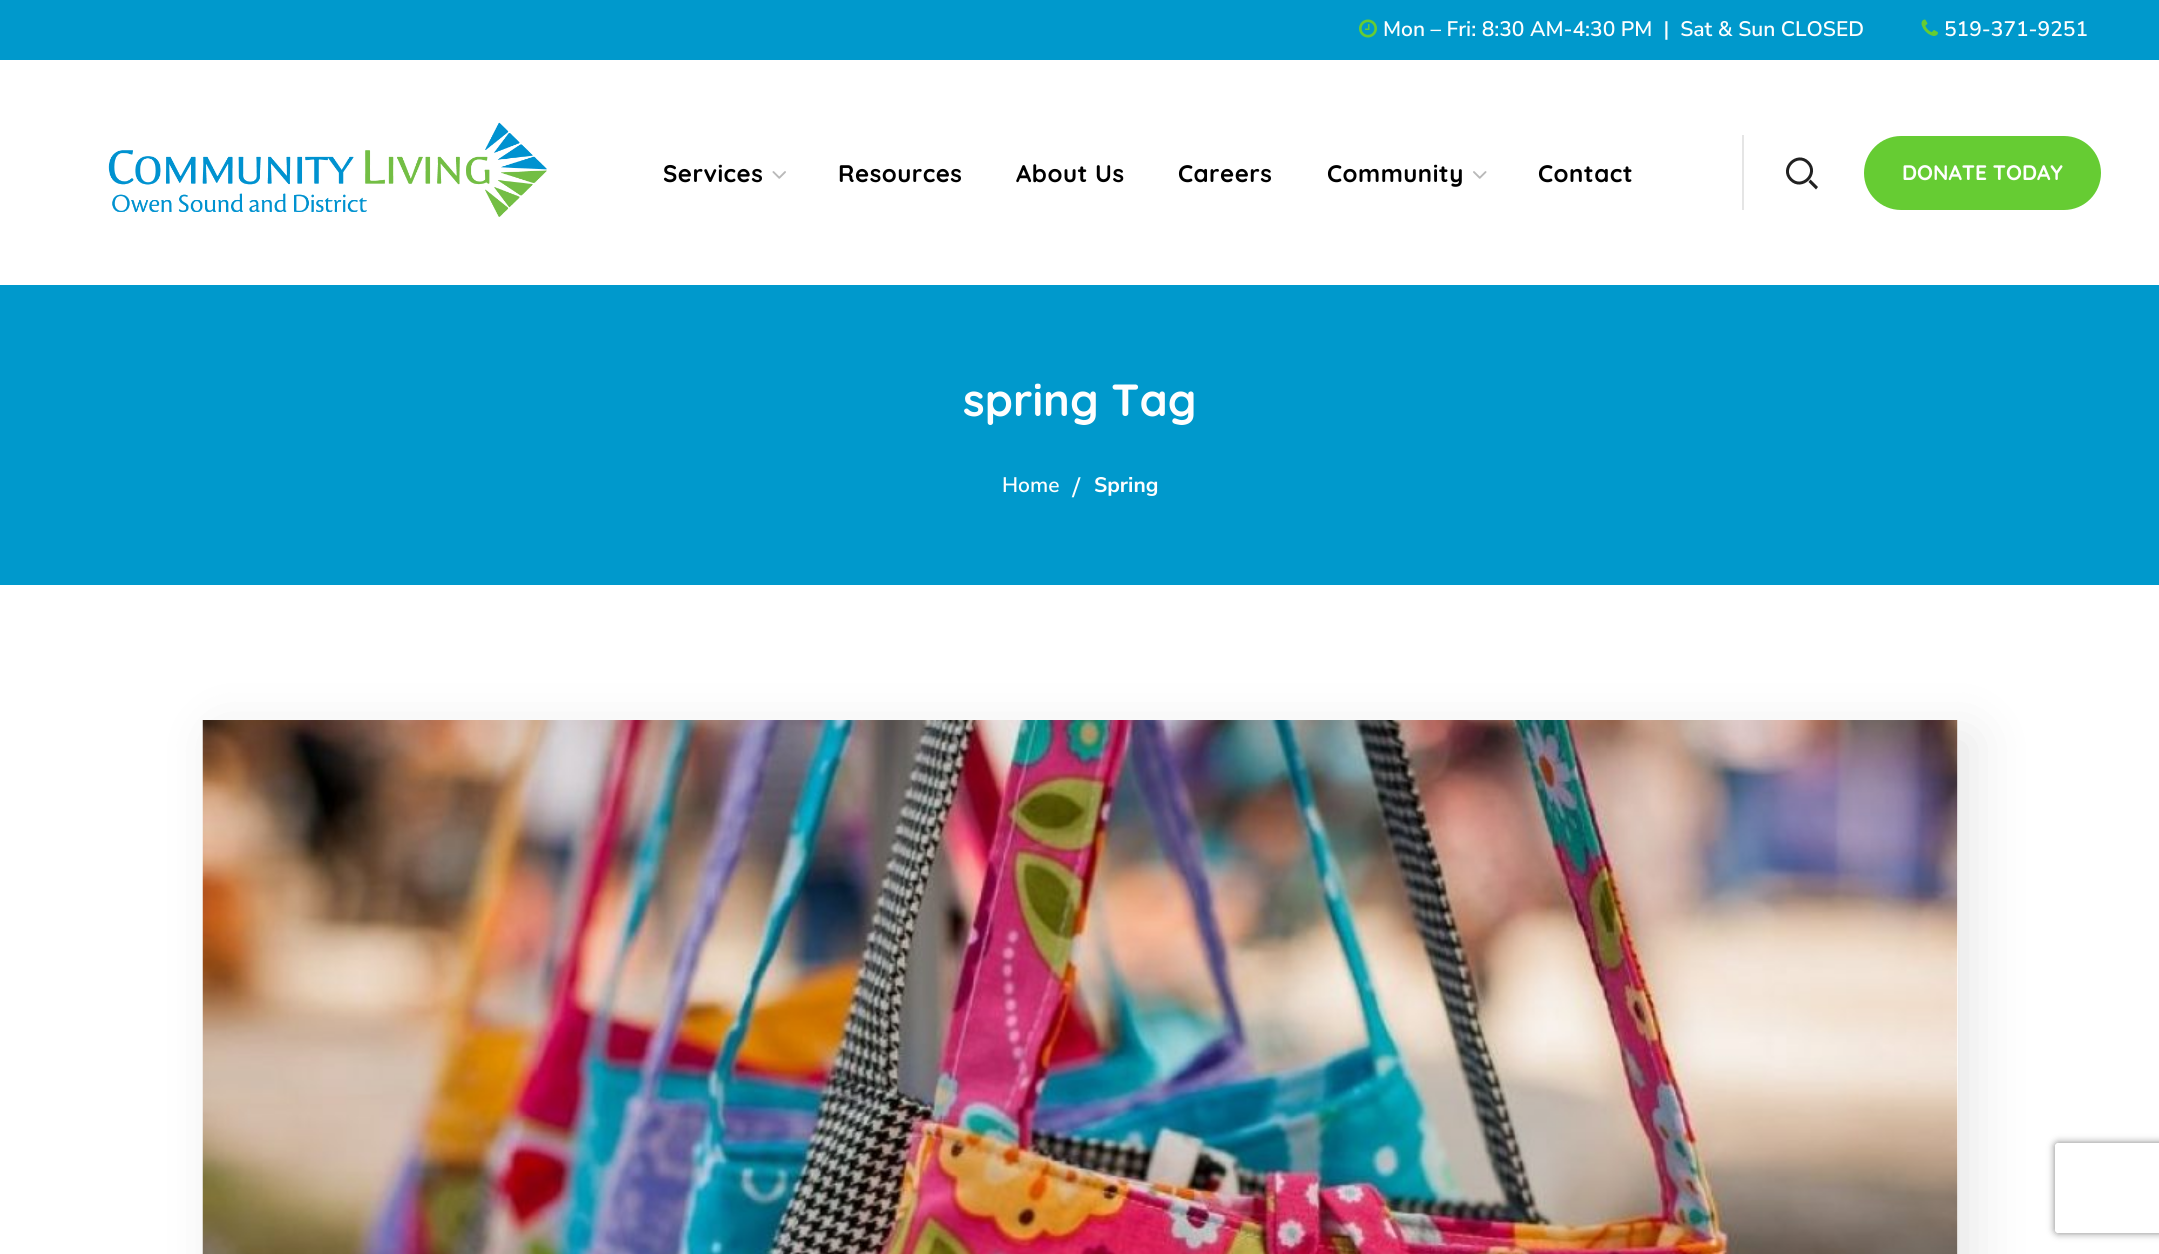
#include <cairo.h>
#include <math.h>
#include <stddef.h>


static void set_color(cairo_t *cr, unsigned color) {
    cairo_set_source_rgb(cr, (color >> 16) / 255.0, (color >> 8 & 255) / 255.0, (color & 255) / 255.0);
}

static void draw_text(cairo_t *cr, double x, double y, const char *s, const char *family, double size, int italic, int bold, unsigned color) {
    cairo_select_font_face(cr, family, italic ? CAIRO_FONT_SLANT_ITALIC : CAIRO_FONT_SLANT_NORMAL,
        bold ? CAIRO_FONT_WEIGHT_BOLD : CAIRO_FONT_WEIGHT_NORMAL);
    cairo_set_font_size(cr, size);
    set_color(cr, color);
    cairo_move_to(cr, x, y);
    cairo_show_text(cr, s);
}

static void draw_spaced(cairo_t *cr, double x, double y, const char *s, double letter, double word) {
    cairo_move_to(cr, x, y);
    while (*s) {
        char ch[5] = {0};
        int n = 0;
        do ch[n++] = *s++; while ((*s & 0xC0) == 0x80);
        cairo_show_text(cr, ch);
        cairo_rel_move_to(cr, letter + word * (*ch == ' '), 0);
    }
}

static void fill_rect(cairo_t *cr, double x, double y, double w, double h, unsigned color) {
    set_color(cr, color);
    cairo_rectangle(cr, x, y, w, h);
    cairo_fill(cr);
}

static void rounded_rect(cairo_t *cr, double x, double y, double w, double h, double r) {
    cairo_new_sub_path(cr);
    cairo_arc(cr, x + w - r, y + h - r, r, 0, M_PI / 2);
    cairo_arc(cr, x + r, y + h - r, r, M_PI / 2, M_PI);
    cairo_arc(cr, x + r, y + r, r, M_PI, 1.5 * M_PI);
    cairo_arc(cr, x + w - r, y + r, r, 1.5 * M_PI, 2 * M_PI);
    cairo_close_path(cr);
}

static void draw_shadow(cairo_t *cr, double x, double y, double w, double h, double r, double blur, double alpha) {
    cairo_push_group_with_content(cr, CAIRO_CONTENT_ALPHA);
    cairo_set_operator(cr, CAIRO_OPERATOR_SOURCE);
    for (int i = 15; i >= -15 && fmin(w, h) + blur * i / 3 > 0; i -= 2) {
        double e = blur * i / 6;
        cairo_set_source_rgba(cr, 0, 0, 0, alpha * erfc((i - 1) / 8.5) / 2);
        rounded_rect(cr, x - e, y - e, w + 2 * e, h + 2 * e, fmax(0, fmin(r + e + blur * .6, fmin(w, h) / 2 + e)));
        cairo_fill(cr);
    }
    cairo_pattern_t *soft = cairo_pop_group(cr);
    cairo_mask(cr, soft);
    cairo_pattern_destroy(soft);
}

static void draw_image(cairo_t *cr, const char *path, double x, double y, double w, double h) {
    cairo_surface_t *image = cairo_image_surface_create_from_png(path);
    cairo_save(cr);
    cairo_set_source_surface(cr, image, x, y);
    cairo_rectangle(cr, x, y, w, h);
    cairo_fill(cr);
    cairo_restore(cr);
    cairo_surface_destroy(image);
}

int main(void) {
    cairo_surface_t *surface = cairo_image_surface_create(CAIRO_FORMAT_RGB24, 2159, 1254);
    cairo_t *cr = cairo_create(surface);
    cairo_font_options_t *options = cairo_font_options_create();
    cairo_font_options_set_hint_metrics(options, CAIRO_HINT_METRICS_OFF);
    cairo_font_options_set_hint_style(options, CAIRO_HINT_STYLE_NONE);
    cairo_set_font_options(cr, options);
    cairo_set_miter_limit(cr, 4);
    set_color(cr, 0xFFFFFF);
    cairo_paint(cr);
    fill_rect(cr, 0, 0, 2159, 60, 0x0099CC);
    draw_image(cr, "assets/img1.png", 1359, 19, 18, 19);
    draw_text(cr, 1383, 36, "Mon – Fri: 8:30 AM-4:30 PM  |  Sat & Sun CLOSED", "Nunito Sans SemiBold", 21, 0, 0, 0xFEFEFE);
    draw_image(cr, "assets/img2.png", 1921, 19, 17, 17);
    draw_text(cr, 1944, 36, "519-371-9251", "Nunito Sans SemiBold", 21, 0, 0, 0xFEFEFE);
    draw_image(cr, "assets/img3.png", 108, 122, 439, 95);
    cairo_select_font_face(cr, "Quicksand", CAIRO_FONT_SLANT_NORMAL, CAIRO_FONT_WEIGHT_BOLD);
    cairo_set_font_size(cr, 24);
    set_color(cr, 0x000000);
    draw_spaced(cr, 663, 182, "Services", 0.5, 0);
    draw_image(cr, "assets/img4.png", 772, 171, 14, 8);
    draw_spaced(cr, 838, 182, "Resources", 0.5, 0);
    draw_spaced(cr, 1016, 182, "About Us", 0.5, 0);
    draw_spaced(cr, 1178, 182, "Careers", 0.5, 0);
    draw_spaced(cr, 1327, 182, "Community", 0.5, 0);
    draw_image(cr, "assets/img5.png", 1473, 171, 14, 8);
    draw_spaced(cr, 1538, 182, "Contact", 0.5, 0);
    fill_rect(cr, 1742, 135, 2, 75, 0xE5E5E5);
    cairo_new_path(cr);
    cairo_move_to(cr, 1808, 162.5);
    cairo_curve_to(cr, 1819, 173.5, 1802, 190.5, 1791, 179.5);
    cairo_curve_to(cr, 1780, 168.5, 1797, 151.5, 1808, 162.5);
    cairo_close_path(cr);
    set_color(cr, 0x212121);
    cairo_set_line_width(cr, 3);
    cairo_stroke(cr);
    cairo_new_path(cr);
    cairo_move_to(cr, 1808.5, 182);
    cairo_line_to(cr, 1810.5, 179.5);
    cairo_line_to(cr, 1818, 187);
    cairo_line_to(cr, 1816, 189.5);
    cairo_close_path(cr);
    cairo_fill(cr);
    set_color(cr, 0x66CC33);
    rounded_rect(cr, 1863, 135, 239, 76, 38);
    cairo_fill_preserve(cr);
    set_color(cr, 0xFFFFFF);
    cairo_set_line_width(cr, 2);
    cairo_stroke(cr);
    draw_text(cr, 1902, 180, "DONATE TODAY", "Quicksand", 21, 0, 1, 0xFEFEFE);
    fill_rect(cr, 0, 285, 2159, 300, 0x0099CC);
    draw_text(cr, 963, 416, "spring Tag", "Quicksand", 45, 0, 1, 0xFEFEFE);
    draw_text(cr, 1002, 492, "Home", "Nunito Sans SemiBold", 21, 0, 0, 0xFEFEFE);
    draw_text(cr, 1072, 497, "/", "Liberation Serif", 30, 0, 1, 0xFEFEFE);
    draw_text(cr, 1094, 492, "Spring", "Nunito Sans", 21, 0, 1, 0xFEFEFE);
    set_color(cr, 0x000000);
    draw_shadow(cr, 219, 735, 1755, 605, 0, 28.5, 0.1);
    fill_rect(cr, 1957, 720, 1, 534, 0xFFFFFF);
    draw_image(cr, "assets/img6.png", 202, 720, 1756, 534);
    cairo_save(cr);
    cairo_set_fill_rule(cr, CAIRO_FILL_RULE_EVEN_ODD);
    cairo_new_path(cr);
    cairo_move_to(cr, 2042, 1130);
    cairo_line_to(cr, 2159, 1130);
    cairo_line_to(cr, 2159, 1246);
    cairo_line_to(cr, 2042, 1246);
    cairo_close_path(cr);
    cairo_move_to(cr, 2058, 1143);
    cairo_line_to(cr, 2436, 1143);
    cairo_curve_to(cr, 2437.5, 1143, 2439, 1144.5, 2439, 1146);
    cairo_line_to(cr, 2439, 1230);
    cairo_curve_to(cr, 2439, 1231.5, 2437.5, 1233, 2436, 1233);
    cairo_line_to(cr, 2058, 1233);
    cairo_curve_to(cr, 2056.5, 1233, 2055, 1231.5, 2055, 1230);
    cairo_line_to(cr, 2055, 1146);
    cairo_curve_to(cr, 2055, 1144.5, 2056.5, 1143, 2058, 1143);
    cairo_close_path(cr);
    cairo_clip(cr);
    set_color(cr, 0x808080);
    draw_shadow(cr, 2055, 1143, 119, 90, 3, 4, 1);
    cairo_restore(cr);
    cairo_surface_write_to_png(surface, "output.png");
    cairo_font_options_destroy(options);
    cairo_destroy(cr);
    cairo_surface_destroy(surface);
    return 0;
}
